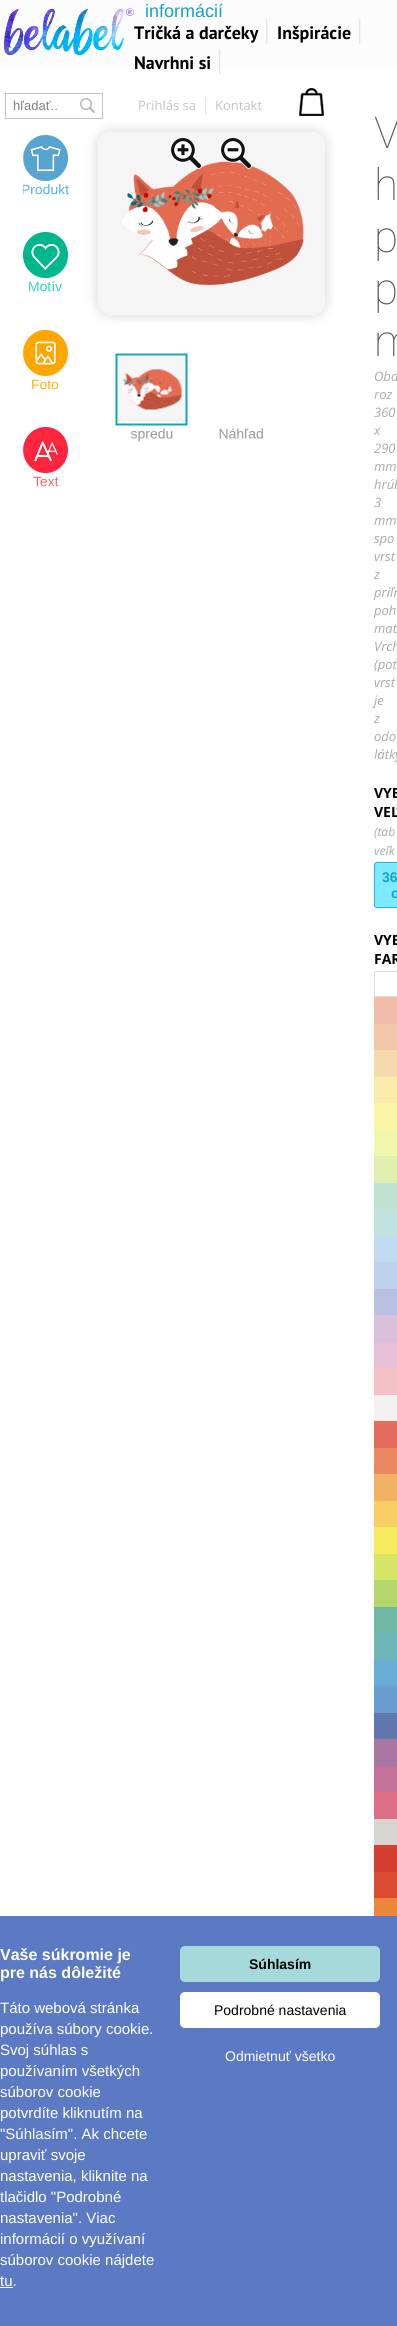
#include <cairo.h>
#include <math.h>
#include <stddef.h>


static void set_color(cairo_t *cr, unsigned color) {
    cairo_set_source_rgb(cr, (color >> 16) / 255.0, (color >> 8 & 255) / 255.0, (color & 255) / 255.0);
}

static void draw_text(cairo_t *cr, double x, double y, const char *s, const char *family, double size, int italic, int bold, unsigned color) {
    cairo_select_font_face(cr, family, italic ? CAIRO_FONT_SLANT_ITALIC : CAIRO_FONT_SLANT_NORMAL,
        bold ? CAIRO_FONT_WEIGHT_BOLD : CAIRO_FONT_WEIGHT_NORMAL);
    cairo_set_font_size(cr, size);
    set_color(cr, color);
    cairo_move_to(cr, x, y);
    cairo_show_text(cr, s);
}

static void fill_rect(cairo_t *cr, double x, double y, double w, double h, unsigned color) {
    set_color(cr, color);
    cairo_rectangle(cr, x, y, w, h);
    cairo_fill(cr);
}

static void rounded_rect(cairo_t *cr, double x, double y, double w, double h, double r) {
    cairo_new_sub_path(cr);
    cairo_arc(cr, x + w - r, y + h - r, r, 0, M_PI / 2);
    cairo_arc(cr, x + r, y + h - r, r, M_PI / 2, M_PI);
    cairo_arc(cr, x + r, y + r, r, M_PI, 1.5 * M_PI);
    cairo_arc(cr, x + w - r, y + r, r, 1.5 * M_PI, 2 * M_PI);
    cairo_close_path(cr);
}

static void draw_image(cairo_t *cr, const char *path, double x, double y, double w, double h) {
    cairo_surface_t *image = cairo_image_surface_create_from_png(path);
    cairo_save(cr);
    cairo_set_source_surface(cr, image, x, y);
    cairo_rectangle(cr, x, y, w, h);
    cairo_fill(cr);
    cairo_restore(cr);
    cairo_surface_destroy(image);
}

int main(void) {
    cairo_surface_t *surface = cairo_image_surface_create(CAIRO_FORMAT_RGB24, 397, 2326);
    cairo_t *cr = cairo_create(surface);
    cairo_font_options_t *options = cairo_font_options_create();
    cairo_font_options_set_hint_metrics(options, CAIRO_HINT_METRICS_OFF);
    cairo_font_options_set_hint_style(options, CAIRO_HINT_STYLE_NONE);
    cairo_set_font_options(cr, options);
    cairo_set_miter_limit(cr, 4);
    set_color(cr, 0xFFFFFF);
    cairo_paint(cr);
    fill_rect(cr, 0, 0, 397, 68, 0xFCFCFC);
    draw_text(cr, 145, 17, "informácií", "Liberation Sans", 18, 0, 0, 0x13A4C2);
    draw_image(cr, "assets/img1.png", 4, 8, 130, 47);
    draw_text(cr, 134, 39, "Tričká a darčeky", "PT Sans", 18, 0, 1, 0x000000);
    draw_image(cr, "assets/img2.png", 266, 19, 2, 25);
    draw_text(cr, 277, 39, "Inšpirácie", "PT Sans", 18, 0, 1, 0x000000);
    draw_image(cr, "assets/img2.png", 359, 19, 2, 25);
    draw_text(cr, 134, 69, "Navrhni si", "PT Sans", 18, 0, 1, 0x000000);
    draw_image(cr, "assets/img3.png", 219, 49, 2, 25);
    cairo_rectangle(cr, 5.5, 93.5, 97, 25);
    set_color(cr, 0xC4C4C4);
    cairo_set_line_width(cr, 1);
    cairo_stroke(cr);
    draw_text(cr, 13, 110, "hľadať..", "Liberation Sans", 13, 0, 0, 0x808080);
    draw_image(cr, "assets/img4.png", 80, 98, 15, 15);
    draw_text(cr, 138, 110, "Prihlás sa", "Open Sans", 13, 0, 0, 0xC4C4C4);
    draw_image(cr, "assets/img5.png", 205, 97, 2, 17);
    draw_text(cr, 215, 110, "Kontakt", "Open Sans", 13, 0, 0, 0xC4C4C4);
    draw_image(cr, "assets/img6.png", 299, 88, 25, 28);
    draw_image(cr, "assets/img7.png", 23, 123, 311, 364);
    draw_text(cr, 374, 148, "V", "Roboto Thin", 44, 0, 0, 0x555555);
    draw_text(cr, 374, 200, "h", "Roboto Thin", 44, 0, 0, 0x555555);
    draw_text(cr, 374, 252, "p", "Roboto Thin", 44, 0, 0, 0x555555);
    draw_text(cr, 374, 304, "p", "Roboto Thin", 44, 0, 0, 0x555555);
    draw_text(cr, 374, 356, "m", "Roboto Thin", 44, 0, 0, 0x555555);
    draw_text(cr, 374, 381, "Obd", "Open Sans", 13, 1, 0, 0xAAAAAA);
    draw_text(cr, 374, 399, "roz", "Open Sans", 13, 1, 0, 0xAAAAAA);
    draw_text(cr, 374, 417, "360", "Open Sans", 13, 1, 0, 0xAAAAAA);
    draw_text(cr, 374, 435, "x", "Open Sans", 13, 1, 0, 0xAAAAAA);
    draw_text(cr, 374, 453, "290", "Open Sans", 13, 1, 0, 0xAAAAAA);
    draw_text(cr, 374, 471, "mm", "Open Sans", 13, 1, 0, 0xAAAAAA);
    draw_text(cr, 374, 489, "hrúb", "Open Sans", 13, 1, 0, 0xAAAAAA);
    draw_text(cr, 374, 507, "3", "Open Sans", 13, 1, 0, 0xAAAAAA);
    draw_text(cr, 374, 525, "mm", "Open Sans", 13, 1, 0, 0xAAAAAA);
    draw_text(cr, 374, 543, "spo", "Open Sans", 13, 1, 0, 0xAAAAAA);
    draw_text(cr, 374, 561, "vrst", "Open Sans", 13, 1, 0, 0xAAAAAA);
    draw_text(cr, 374, 579, "z", "Open Sans", 13, 1, 0, 0xAAAAAA);
    draw_text(cr, 374, 597, "priľn", "Open Sans", 13, 1, 0, 0xAAAAAA);
    draw_text(cr, 374, 615, "poh", "Open Sans", 13, 1, 0, 0xAAAAAA);
    draw_text(cr, 374, 633, "mat", "Open Sans", 13, 1, 0, 0xAAAAAA);
    draw_text(cr, 374, 651, "Vrch", "Open Sans", 13, 1, 0, 0xAAAAAA);
    draw_text(cr, 374, 669, "(pot", "Open Sans", 13, 1, 0, 0xAAAAAA);
    draw_text(cr, 374, 687, "vrst", "Open Sans", 13, 1, 0, 0xAAAAAA);
    draw_text(cr, 374, 705, "je", "Open Sans", 13, 1, 0, 0xAAAAAA);
    draw_text(cr, 374, 723, "z", "Open Sans", 13, 1, 0, 0xAAAAAA);
    draw_text(cr, 374, 741, "odo", "Open Sans", 13, 1, 0, 0xAAAAAA);
    draw_text(cr, 374, 759, "látky", "Open Sans", 13, 1, 0, 0xAAAAAA);
    draw_text(cr, 374, 798, "VYB", "Open Sans", 14, 0, 1, 0x000000);
    draw_text(cr, 374, 817, "VEĽ", "Open Sans", 14, 0, 1, 0x000000);
    draw_text(cr, 374, 836, "(tab", "Open Sans", 12, 1, 0, 0xAAAAAA);
    draw_text(cr, 374, 855, "veľk", "Open Sans", 12, 1, 0, 0xAAAAAA);
    set_color(cr, 0x7EE9FF);
    rounded_rect(cr, 374.5, 862.5, 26, 45, 2.5);
    cairo_fill_preserve(cr);
    set_color(cr, 0x23B4D2);
    cairo_stroke(cr);
    draw_text(cr, 382, 882, "36", "Liberation Sans", 14, 0, 1, 0x13A4C2);
    draw_text(cr, 391, 898, "c", "Liberation Sans", 14, 0, 1, 0x13A4C2);
    draw_text(cr, 374, 945, "VYB", "Open Sans", 14, 0, 1, 0x000000);
    draw_text(cr, 374, 964, "FAR", "Open Sans", 14, 0, 1, 0x000000);
    cairo_rectangle(cr, 374.5, 971.5, 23, 25);
    set_color(cr, 0xDDDDDD);
    cairo_stroke(cr);
    fill_rect(cr, 374, 997, 23, 27, 0xF2BCAB);
    fill_rect(cr, 374, 1024, 23, 26, 0xF4C6AB);
    fill_rect(cr, 374, 1050, 23, 27, 0xF7D9AE);
    fill_rect(cr, 374, 1077, 23, 26, 0xFAEAAC);
    fill_rect(cr, 374, 1103, 23, 27, 0xFBF5A6);
    fill_rect(cr, 374, 1130, 23, 26, 0xF1F6AD);
    fill_rect(cr, 374, 1156, 23, 27, 0xE0EFAF);
    fill_rect(cr, 374, 1183, 23, 26, 0xC1E2D0);
    fill_rect(cr, 374, 1209, 23, 27, 0xC2E2E0);
    fill_rect(cr, 374, 1236, 23, 26, 0xC1DBF0);
    fill_rect(cr, 374, 1262, 23, 27, 0xBED2EC);
    fill_rect(cr, 374, 1289, 23, 26, 0xB9C0E1);
    fill_rect(cr, 374, 1315, 23, 27, 0xDAC1DB);
    fill_rect(cr, 374, 1342, 23, 26, 0xE7C1D9);
    fill_rect(cr, 374, 1368, 23, 27, 0xF3C0C7);
    fill_rect(cr, 374, 1395, 23, 26, 0xF3F1EF);
    fill_rect(cr, 374, 1421, 23, 27, 0xE36C5C);
    fill_rect(cr, 374, 1448, 23, 26, 0xEB8962);
    fill_rect(cr, 374, 1474, 23, 27, 0xF2B266);
    fill_rect(cr, 374, 1501, 23, 26, 0xF7CF64);
    fill_rect(cr, 374, 1527, 23, 27, 0xF4EC5D);
    fill_rect(cr, 374, 1554, 23, 26, 0xD7E566);
    fill_rect(cr, 374, 1580, 23, 27, 0xB4D66A);
    fill_rect(cr, 374, 1607, 23, 26, 0x71B7A2);
    fill_rect(cr, 374, 1633, 23, 27, 0x6EB6B7);
    fill_rect(cr, 374, 1660, 23, 26, 0x68ADD4);
    fill_rect(cr, 374, 1686, 23, 27, 0x699ECF);
    fill_rect(cr, 374, 1713, 23, 26, 0x5F77AD);
    fill_rect(cr, 374, 1739, 23, 27, 0xA9769F);
    fill_rect(cr, 374, 1766, 23, 26, 0xC37399);
    fill_rect(cr, 374, 1792, 23, 27, 0xDE6F88);
    fill_rect(cr, 374, 1819, 23, 26, 0xD6D5D0);
    fill_rect(cr, 374, 1845, 23, 27, 0xD43E33);
    fill_rect(cr, 374, 1872, 23, 26, 0xDB4C32);
    fill_rect(cr, 374, 1898, 23, 18, 0xEB863A);
    fill_rect(cr, 0, 1916, 397, 410, 0x5C7AC3);
    draw_text(cr, 0, 1960, "Vaše súkromie je", "Liberation Sans", 16, 0, 1, 0xFFFFFF);
    draw_text(cr, 0, 1978, "pre nás dôležité", "Liberation Sans", 16, 0, 1, 0xFFFFFF);
    draw_text(cr, 0, 2013, "Táto webová stránka", "Liberation Sans", 15, 0, 0, 0xFFFFFF);
    draw_text(cr, 0, 2034, "používa súbory cookie.", "Liberation Sans", 15, 0, 0, 0xFFFFFF);
    draw_text(cr, 0, 2055, "Svoj súhlas s", "Liberation Sans", 15, 0, 0, 0xFFFFFF);
    draw_text(cr, 0, 2076, "používaním všetkých", "Liberation Sans", 15, 0, 0, 0xFFFFFF);
    draw_text(cr, 0, 2097, "súborov cookie", "Liberation Sans", 15, 0, 0, 0xFFFFFF);
    draw_text(cr, 0, 2118, "potvrdíte kliknutím na", "Liberation Sans", 15, 0, 0, 0xFFFFFF);
    draw_text(cr, 0, 2139, "\"Súhlasím\". Ak chcete", "Liberation Sans", 15, 0, 0, 0xFFFFFF);
    draw_text(cr, 0, 2160, "upraviť svoje", "Liberation Sans", 15, 0, 0, 0xFFFFFF);
    draw_text(cr, 0, 2181, "nastavenia, kliknite na", "Liberation Sans", 15, 0, 0, 0xFFFFFF);
    draw_text(cr, 0, 2202, "tlačidlo \"Podrobné", "Liberation Sans", 15, 0, 0, 0xFFFFFF);
    draw_text(cr, 0, 2223, "nastavenia\". Viac", "Liberation Sans", 15, 0, 0, 0xFFFFFF);
    draw_text(cr, 0, 2244, "informácií o využívaní", "Liberation Sans", 15, 0, 0, 0xFFFFFF);
    draw_text(cr, 0, 2265, "súborov cookie nájdete", "Liberation Sans", 15, 0, 0, 0xFFFFFF);
    draw_text(cr, 0, 2286, "tu.", "Liberation Sans", 15, 0, 0, 0xFFFFFF);
    fill_rect(cr, 0, 2287, 13, 1, 0xFFFFFF);
    set_color(cr, 0xA6D9DC);
    rounded_rect(cr, 180, 1946, 200, 36, 5);
    cairo_fill(cr);
    draw_text(cr, 249, 1969, "Súhlasím", "Liberation Sans", 14, 0, 1, 0x000000);
    set_color(cr, 0xFFFFFF);
    rounded_rect(cr, 180, 1992, 200, 36, 5);
    cairo_fill(cr);
    draw_text(cr, 214, 2015, "Podrobné nastavenia", "Liberation Sans", 14, 0, 0, 0x000000);
    draw_text(cr, 225, 2061, "Odmietnuť všetko", "Liberation Sans", 14, 0, 0, 0xFFFFFF);
    cairo_surface_write_to_png(surface, "output.png");
    cairo_font_options_destroy(options);
    cairo_destroy(cr);
    cairo_surface_destroy(surface);
    return 0;
}
